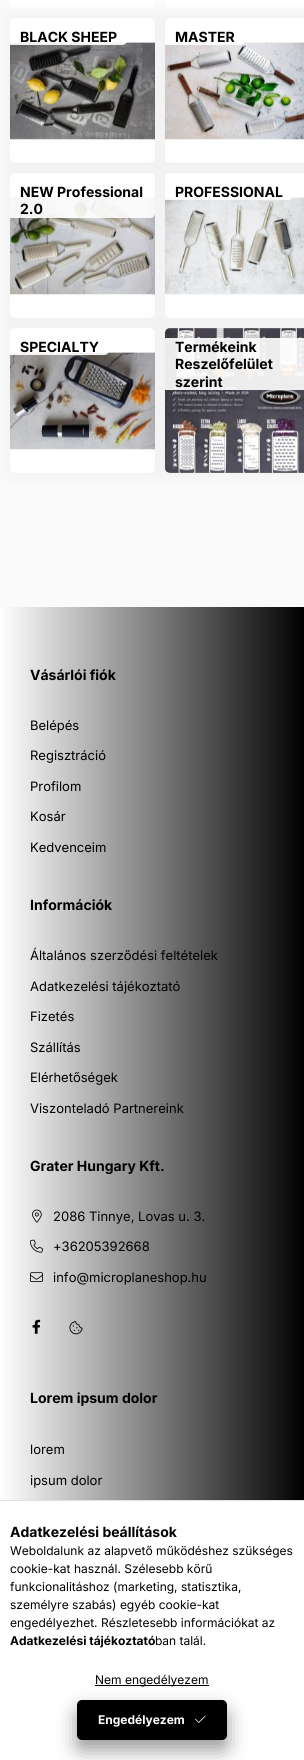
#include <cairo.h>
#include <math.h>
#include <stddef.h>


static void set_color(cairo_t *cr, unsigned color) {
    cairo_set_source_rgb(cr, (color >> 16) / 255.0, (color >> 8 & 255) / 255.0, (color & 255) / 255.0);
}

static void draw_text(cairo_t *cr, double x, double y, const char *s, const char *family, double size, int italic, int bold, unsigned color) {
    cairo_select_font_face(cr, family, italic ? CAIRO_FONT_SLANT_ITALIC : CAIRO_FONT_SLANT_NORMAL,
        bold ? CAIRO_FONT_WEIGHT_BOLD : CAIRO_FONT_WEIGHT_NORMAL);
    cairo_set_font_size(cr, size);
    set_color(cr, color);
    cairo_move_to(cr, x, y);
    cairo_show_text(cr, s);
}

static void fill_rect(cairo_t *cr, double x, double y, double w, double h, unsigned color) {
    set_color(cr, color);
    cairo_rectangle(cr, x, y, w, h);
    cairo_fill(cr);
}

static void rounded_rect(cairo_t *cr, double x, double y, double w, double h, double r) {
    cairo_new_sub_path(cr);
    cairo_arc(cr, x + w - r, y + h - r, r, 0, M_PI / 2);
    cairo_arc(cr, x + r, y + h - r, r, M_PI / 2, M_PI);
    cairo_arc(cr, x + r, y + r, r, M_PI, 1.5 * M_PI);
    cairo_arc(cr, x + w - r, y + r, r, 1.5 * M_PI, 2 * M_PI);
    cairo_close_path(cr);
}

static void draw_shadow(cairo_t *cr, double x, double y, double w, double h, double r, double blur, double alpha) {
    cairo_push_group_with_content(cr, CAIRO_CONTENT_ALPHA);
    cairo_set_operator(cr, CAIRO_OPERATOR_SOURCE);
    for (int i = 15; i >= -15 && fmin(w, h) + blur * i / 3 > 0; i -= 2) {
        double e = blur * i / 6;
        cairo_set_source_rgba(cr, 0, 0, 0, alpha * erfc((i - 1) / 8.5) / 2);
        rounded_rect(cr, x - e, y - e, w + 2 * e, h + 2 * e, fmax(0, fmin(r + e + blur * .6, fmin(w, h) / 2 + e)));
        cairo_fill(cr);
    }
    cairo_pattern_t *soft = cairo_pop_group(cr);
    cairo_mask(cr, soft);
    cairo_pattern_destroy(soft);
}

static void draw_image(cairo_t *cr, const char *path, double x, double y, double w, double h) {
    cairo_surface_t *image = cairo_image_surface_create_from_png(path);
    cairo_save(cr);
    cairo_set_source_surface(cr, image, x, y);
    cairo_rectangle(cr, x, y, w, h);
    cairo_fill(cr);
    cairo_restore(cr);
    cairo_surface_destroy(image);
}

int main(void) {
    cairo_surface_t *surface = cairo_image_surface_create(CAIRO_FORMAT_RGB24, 304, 1760);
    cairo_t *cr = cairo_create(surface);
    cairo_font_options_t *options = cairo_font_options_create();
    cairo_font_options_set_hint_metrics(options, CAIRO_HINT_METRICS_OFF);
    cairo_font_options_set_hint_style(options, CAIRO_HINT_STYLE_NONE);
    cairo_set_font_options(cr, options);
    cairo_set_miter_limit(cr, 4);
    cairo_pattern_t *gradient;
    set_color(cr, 0xFAFAFA);
    cairo_paint(cr);
    draw_image(cr, "assets/img1.png", 10, 0, 145, 8);
    draw_image(cr, "assets/img2.png", 165, 0, 139, 8);
    set_color(cr, 0x000000);
    draw_shadow(cr, 10, 18, 145, 145, 0, 10, 0.05);
    draw_image(cr, "assets/img3.png", 10, 18, 145, 145);
    cairo_set_source_rgba(cr, 1, 1, 1, 0.9);
    cairo_new_path(cr);
    cairo_move_to(cr, 10, 28);
    cairo_line_to(cr, 122, 28);
    cairo_curve_to(cr, 125, 28, 127, 30, 127, 33);
    cairo_line_to(cr, 127, 40);
    cairo_curve_to(cr, 127, 43, 125, 45, 122, 45);
    cairo_line_to(cr, 10, 45);
    cairo_close_path(cr);
    cairo_fill(cr);
    draw_text(cr, 20, 42, "BLACK SHEEP", "Inter", 14, 0, 1, 0x000000);
    set_color(cr, 0x000000);
    draw_shadow(cr, 165, 18, 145, 145, 0, 10, 0.05);
    draw_image(cr, "assets/img4.png", 165, 18, 139, 145);
    cairo_set_source_rgba(cr, 1, 1, 1, 0.9);
    cairo_new_path(cr);
    cairo_move_to(cr, 165, 28);
    cairo_line_to(cr, 240, 28);
    cairo_curve_to(cr, 243, 28, 245, 30, 245, 33);
    cairo_line_to(cr, 245, 40);
    cairo_curve_to(cr, 245, 43, 243, 45, 240, 45);
    cairo_line_to(cr, 165, 45);
    cairo_close_path(cr);
    cairo_fill(cr);
    draw_text(cr, 175, 42, "MASTER", "Inter", 14, 0, 1, 0x000000);
    set_color(cr, 0x000000);
    draw_shadow(cr, 10, 173, 145, 145, 0, 10, 0.05);
    draw_image(cr, "assets/img5.png", 10, 173, 145, 145);
    cairo_set_source_rgba(cr, 1, 1, 1, 0.9);
    cairo_new_path(cr);
    cairo_move_to(cr, 10, 183);
    cairo_line_to(cr, 150, 183);
    cairo_curve_to(cr, 153, 183, 155, 185, 155, 188);
    cairo_line_to(cr, 155, 213);
    cairo_curve_to(cr, 155, 216, 153, 218, 150, 218);
    cairo_line_to(cr, 10, 218);
    cairo_close_path(cr);
    cairo_fill(cr);
    draw_text(cr, 20, 197, "NEW Professional", "Inter", 14, 0, 1, 0x000000);
    draw_text(cr, 20, 214, "2.0", "Inter", 14, 0, 1, 0x000000);
    set_color(cr, 0x000000);
    draw_shadow(cr, 165, 173, 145, 145, 0, 10, 0.05);
    draw_image(cr, "assets/img6.png", 165, 173, 139, 145);
    cairo_set_source_rgba(cr, 1, 1, 1, 0.9);
    cairo_new_path(cr);
    cairo_move_to(cr, 165, 183);
    cairo_line_to(cr, 288, 183);
    cairo_curve_to(cr, 291, 183, 293, 185, 293, 188);
    cairo_line_to(cr, 293, 195);
    cairo_curve_to(cr, 293, 198, 291, 200, 288, 200);
    cairo_line_to(cr, 165, 200);
    cairo_close_path(cr);
    cairo_fill(cr);
    draw_text(cr, 175, 197, "PROFESSIONAL", "Inter", 14, 0, 1, 0x000000);
    set_color(cr, 0x000000);
    draw_shadow(cr, 10, 328, 145, 145, 0, 10, 0.05);
    draw_image(cr, "assets/img7.png", 10, 328, 145, 145);
    cairo_set_source_rgba(cr, 1, 1, 1, 0.9);
    cairo_new_path(cr);
    cairo_move_to(cr, 10, 338);
    cairo_line_to(cr, 104, 338);
    cairo_curve_to(cr, 107, 338, 109, 340, 109, 343);
    cairo_line_to(cr, 109, 350);
    cairo_curve_to(cr, 109, 353, 107, 355, 104, 355);
    cairo_line_to(cr, 10, 355);
    cairo_close_path(cr);
    cairo_fill(cr);
    draw_text(cr, 20, 352, "SPECIALTY", "Inter", 14, 0, 1, 0x000000);
    set_color(cr, 0x000000);
    draw_shadow(cr, 165, 328, 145, 145, 0, 10, 0.05);
    draw_image(cr, "assets/img8.png", 165, 328, 139, 145);
    cairo_set_source_rgba(cr, 1, 1, 1, 0.9);
    cairo_rectangle(cr, 165, 338, 139, 52);
    cairo_fill(cr);
    draw_text(cr, 175, 352, "Termékeink", "Inter", 14, 0, 1, 0x000000);
    draw_text(cr, 175, 369, "Reszelőfelület", "Inter", 14, 0, 1, 0x000000);
    draw_text(cr, 175, 387, "szerint", "Inter", 14, 0, 1, 0x000000);
    gradient = cairo_pattern_create_linear(0, 880, 304, 880);
    cairo_pattern_add_color_stop_rgba(gradient, 0, 1, 1, 1, 1);
    cairo_pattern_add_color_stop_rgba(gradient, 1, 0, 0, 0, 1);
    cairo_set_source(cr, gradient);
    cairo_pattern_destroy(gradient);
    cairo_rectangle(cr, 0, 607, 304, 893);
    cairo_fill(cr);
    draw_text(cr, 30, 680, "Vásárlói fiók", "Inter", 14, 0, 1, 0x000000);
    draw_text(cr, 30, 730, "Belépés", "Inter", 13, 0, 0, 0x000000);
    draw_text(cr, 30, 760, "Regisztráció", "Inter", 13, 0, 0, 0x000000);
    draw_text(cr, 30, 791, "Profilom", "Inter", 13, 0, 0, 0x000000);
    draw_text(cr, 30, 821, "Kosár", "Inter", 13, 0, 0, 0x000000);
    draw_text(cr, 30, 852, "Kedvenceim", "Inter", 13, 0, 0, 0x000000);
    draw_text(cr, 30, 910, "Információk", "Inter", 14, 0, 1, 0x000000);
    draw_text(cr, 30, 960, "Általános szerződési feltételek", "Inter", 13, 0, 0, 0x000000);
    draw_text(cr, 30, 991, "Adatkezelési tájékoztató", "Inter", 13, 0, 0, 0x000000);
    draw_text(cr, 30, 1021, "Fizetés", "Inter", 13, 0, 0, 0x000000);
    draw_text(cr, 30, 1052, "Szállítás", "Inter", 13, 0, 0, 0x000000);
    draw_text(cr, 30, 1082, "Elérhetőségek", "Inter", 13, 0, 0, 0x000000);
    draw_text(cr, 30, 1113, "Viszonteladó Partnereink", "Inter", 13, 0, 0, 0x000000);
    draw_text(cr, 30, 1171, "Grater Hungary Kft.", "Inter", 14, 0, 1, 0x000000);
    draw_image(cr, "assets/img9.png", 32, 1209, 10, 14);
    draw_text(cr, 53, 1221, "2086 Tinnye, Lovas u. 3.", "Inter", 13, 0, 0, 0x000000);
    draw_image(cr, "assets/img10.png", 30, 1239, 13, 14);
    draw_text(cr, 53, 1251, "+36205392668", "Inter", 13, 0, 0, 0x000000);
    draw_image(cr, "assets/img11.png", 30, 1272, 13, 10);
    draw_text(cr, 53, 1282, "info@microplaneshop.hu", "Inter", 13, 0, 0, 0x000000);
    draw_image(cr, "assets/img12.png", 32, 1319, 9, 15);
    draw_image(cr, "assets/img13.png", 69, 1321, 14, 14);
    draw_text(cr, 30, 1403, "Lorem ipsum dolor", "Inter", 14, 0, 1, 0x000000);
    draw_text(cr, 30, 1454, "lorem", "Inter", 13, 0, 0, 0x000000);
    draw_text(cr, 30, 1485, "ipsum dolor", "Inter", 13, 0, 0, 0x000000);
    fill_rect(cr, 0, 1501, 304, 259, 0xFFFFFF);
    fill_rect(cr, 0, 1500, 304, 1, 0xE1E1E1);
    draw_text(cr, 10, 1537, "Adatkezelési beállítások", "Inter", 14, 0, 1, 0x000000);
    draw_text(cr, 10, 1555, "Weboldalunk az alapvető működéshez szükséges", "Inter", 12, 0, 0, 0x000000);
    draw_text(cr, 10, 1573, "cookie-kat használ. Szélesebb körű", "Inter", 12, 0, 0, 0x000000);
    draw_text(cr, 10, 1591, "funkcionalitáshoz (marketing, statisztika,", "Inter", 12, 0, 0, 0x000000);
    draw_text(cr, 10, 1609, "személyre szabás) egyéb cookie-kat", "Inter", 12, 0, 0, 0x000000);
    draw_text(cr, 10, 1627, "engedélyezhet. Részletesebb információkat az", "Inter", 12, 0, 0, 0x000000);
    draw_text(cr, 10, 1645, "Adatkezelési tájékoztató", "Inter", 12, 0, 1, 0x000000);
    draw_text(cr, 155, 1645, "ban talál.", "Inter", 12, 0, 0, 0x000000);
    fill_rect(cr, 95, 1685, 114, 1, 0x000000);
    draw_text(cr, 95, 1684, "Nem engedélyezem", "Inter", 12, 0, 0, 0x000000);
    set_color(cr, 0x000000);
    draw_shadow(cr, 77, 1710, 150, 40, 5, 10, 0.4);
    set_color(cr, 0x000000);
    rounded_rect(cr, 77.5, 1700.5, 149, 39, 4.5);
    cairo_fill_preserve(cr);
    cairo_set_line_width(cr, 1);
    cairo_stroke(cr);
    draw_text(cr, 98, 1724, "Engedélyezem", "Inter", 12, 0, 1, 0xFFFFFF);
    draw_image(cr, "assets/img14.png", 195, 1715, 11, 8);
    cairo_surface_write_to_png(surface, "output.png");
    cairo_font_options_destroy(options);
    cairo_destroy(cr);
    cairo_surface_destroy(surface);
    return 0;
}
